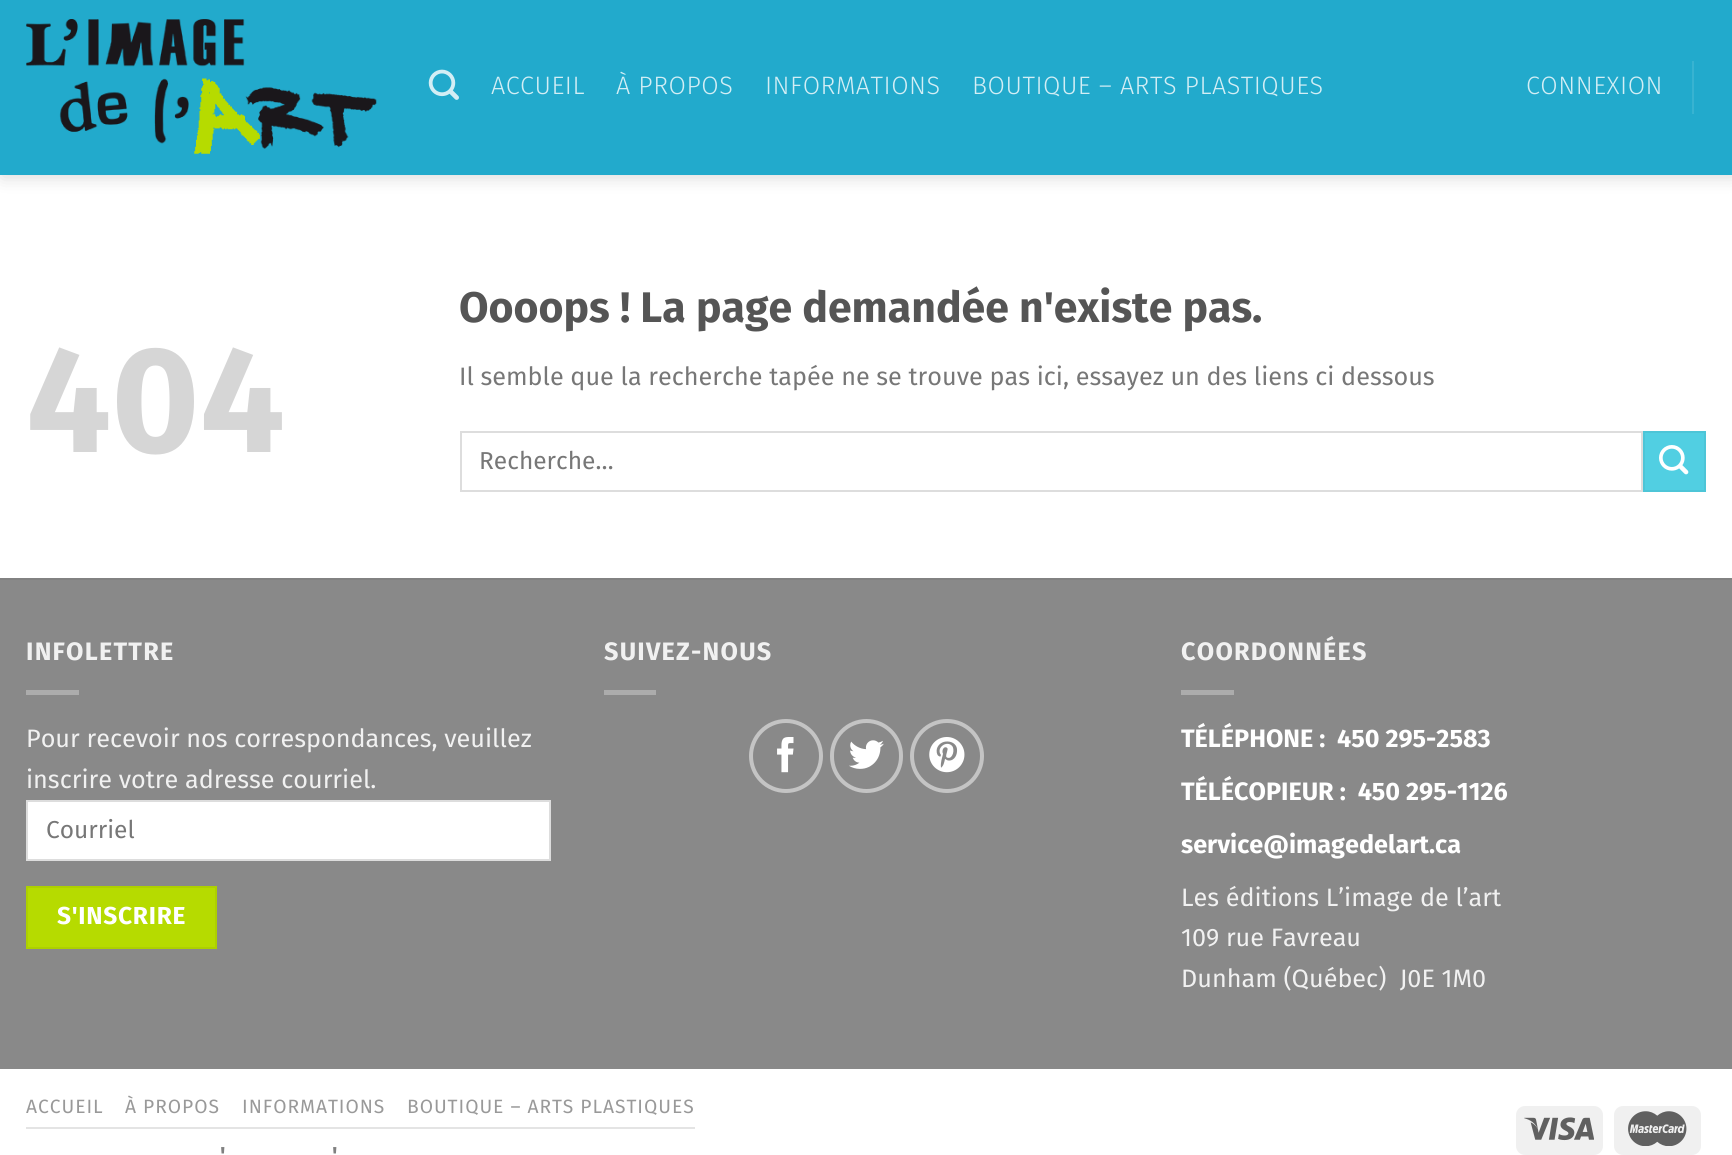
#include <cairo.h>
#include <math.h>
#include <stddef.h>


static void set_color(cairo_t *cr, unsigned color) {
    cairo_set_source_rgb(cr, (color >> 16) / 255.0, (color >> 8 & 255) / 255.0, (color & 255) / 255.0);
}

static void draw_text(cairo_t *cr, double x, double y, const char *s, const char *family, double size, int italic, int bold, unsigned color) {
    cairo_select_font_face(cr, family, italic ? CAIRO_FONT_SLANT_ITALIC : CAIRO_FONT_SLANT_NORMAL,
        bold ? CAIRO_FONT_WEIGHT_BOLD : CAIRO_FONT_WEIGHT_NORMAL);
    cairo_set_font_size(cr, size);
    set_color(cr, color);
    cairo_move_to(cr, x, y);
    cairo_show_text(cr, s);
}

static void draw_spaced(cairo_t *cr, double x, double y, const char *s, double letter, double word) {
    cairo_move_to(cr, x, y);
    while (*s) {
        char ch[5] = {0};
        int n = 0;
        do ch[n++] = *s++; while ((*s & 0xC0) == 0x80);
        cairo_show_text(cr, ch);
        cairo_rel_move_to(cr, letter + word * (*ch == ' '), 0);
    }
}

static void fill_rect(cairo_t *cr, double x, double y, double w, double h, unsigned color) {
    set_color(cr, color);
    cairo_rectangle(cr, x, y, w, h);
    cairo_fill(cr);
}

static void rounded_rect(cairo_t *cr, double x, double y, double w, double h, double r) {
    cairo_new_sub_path(cr);
    cairo_arc(cr, x + w - r, y + h - r, r, 0, M_PI / 2);
    cairo_arc(cr, x + r, y + h - r, r, M_PI / 2, M_PI);
    cairo_arc(cr, x + r, y + r, r, M_PI, 1.5 * M_PI);
    cairo_arc(cr, x + w - r, y + r, r, 1.5 * M_PI, 2 * M_PI);
    cairo_close_path(cr);
}

static void draw_shadow(cairo_t *cr, double x, double y, double w, double h, double r, double blur, double alpha) {
    cairo_push_group_with_content(cr, CAIRO_CONTENT_ALPHA);
    cairo_set_operator(cr, CAIRO_OPERATOR_SOURCE);
    for (int i = 15; i >= -15 && fmin(w, h) + blur * i / 3 > 0; i -= 2) {
        double e = blur * i / 6;
        cairo_set_source_rgba(cr, 0, 0, 0, alpha * erfc((i - 1) / 8.5) / 2);
        rounded_rect(cr, x - e, y - e, w + 2 * e, h + 2 * e, fmax(0, fmin(r + e + blur * .6, fmin(w, h) / 2 + e)));
        cairo_fill(cr);
    }
    cairo_pattern_t *soft = cairo_pop_group(cr);
    cairo_mask(cr, soft);
    cairo_pattern_destroy(soft);
}

static void draw_image(cairo_t *cr, const char *path, double x, double y, double w, double h) {
    cairo_surface_t *image = cairo_image_surface_create_from_png(path);
    cairo_save(cr);
    cairo_set_source_surface(cr, image, x, y);
    cairo_rectangle(cr, x, y, w, h);
    cairo_fill(cr);
    cairo_restore(cr);
    cairo_surface_destroy(image);
}

int main(void) {
    cairo_surface_t *surface = cairo_image_surface_create(CAIRO_FORMAT_RGB24, 1732, 1155);
    cairo_t *cr = cairo_create(surface);
    cairo_font_options_t *options = cairo_font_options_create();
    cairo_font_options_set_hint_metrics(options, CAIRO_HINT_METRICS_OFF);
    cairo_font_options_set_hint_style(options, CAIRO_HINT_STYLE_NONE);
    cairo_set_font_options(cr, options);
    cairo_set_miter_limit(cr, 4);
    set_color(cr, 0xFFFFFF);
    cairo_paint(cr);
    set_color(cr, 0x000000);
    draw_shadow(cr, 2, 0, 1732, 177, 0, 9, 0.15);
    fill_rect(cr, 0, 0, 1732, 175, 0x22AACC);
    draw_image(cr, "assets/img1.png", 26, 19, 351, 135);
    draw_image(cr, "assets/img2.png", 428, 69, 31, 31);
    cairo_select_font_face(cr, "Fira Sans Light", CAIRO_FONT_SLANT_NORMAL, CAIRO_FONT_WEIGHT_NORMAL);
    cairo_set_font_size(cr, 25.2);
    set_color(cr, 0xD3EEF5);
    draw_spaced(cr, 491, 94, "ACCUEIL", 0.5, 0);
    draw_spaced(cr, 616, 94, "À PROPOS", 0.5, 0);
    draw_spaced(cr, 765, 94, "INFORMATIONS", 0.5, 0);
    draw_spaced(cr, 972, 94, "BOUTIQUE – ARTS PLASTIQUES", 0.5, 0);
    draw_spaced(cr, 1526, 94, "CONNEXION", 0.5, 0);
    fill_rect(cr, 1692, 61, 2, 53, 0x38B3D1);
    draw_text(cr, 26, 452, "404", "Fira Sans", 151, 0, 1, 0xD6D6D6);
    draw_text(cr, 459, 322, "Oooops ! La page demandée n'existe pas.", "Fira Sans", 42.8, 0, 1, 0x555555);
    draw_text(cr, 459, 385, "Il semble que la recherche tapée ne se trouve pas ici, essayez un des liens ci dessous", "Fira Sans", 25.2, 0, 0, 0x777777);
    cairo_rectangle(cr, 461, 432, 1181, 59);
    set_color(cr, 0xDDDDDD);
    cairo_stroke(cr);
    draw_text(cr, 479, 469, "Recherche…", "Fira Sans", 24.5, 0, 0, 0x777777);
    set_color(cr, 0x51CFE2);
    cairo_rectangle(cr, 1644, 432, 61, 59);
    cairo_fill_preserve(cr);
    set_color(cr, 0x4DC5D7);
    cairo_stroke(cr);
    draw_image(cr, "assets/img3.png", 1659, 445, 30, 30);
    fill_rect(cr, 0, 580, 1732, 489, 0x898989);
    fill_rect(cr, 0, 578, 1732, 2, 0x828282);
    cairo_select_font_face(cr, "Fira Sans", CAIRO_FONT_SLANT_NORMAL, CAIRO_FONT_WEIGHT_BOLD);
    cairo_set_font_size(cr, 25.2);
    set_color(cr, 0xF1F1F1);
    draw_spaced(cr, 26, 660, "INFOLETTRE", 1.25, 0);
    fill_rect(cr, 26, 690, 53, 5, 0xACACAC);
    draw_text(cr, 26, 747, "Pour recevoir nos correspondances, veuillez", "Fira Sans", 25.2, 0, 0, 0xF1F1F1);
    draw_text(cr, 26, 788, "inscrire votre adresse courriel.", "Fira Sans", 25.2, 0, 0, 0xF1F1F1);
    set_color(cr, 0xFFFFFF);
    cairo_rectangle(cr, 27, 801, 523, 59);
    cairo_fill_preserve(cr);
    set_color(cr, 0xDDDDDD);
    cairo_stroke(cr);
    draw_text(cr, 46, 838, "Courriel", "Fira Sans", 24.5, 0, 0, 0x777777);
    set_color(cr, 0xB6DB00);
    cairo_rectangle(cr, 27, 887, 189, 61);
    cairo_fill_preserve(cr);
    set_color(cr, 0xADD000);
    cairo_stroke(cr);
    cairo_select_font_face(cr, "Fira Sans", CAIRO_FONT_SLANT_NORMAL, CAIRO_FONT_WEIGHT_BOLD);
    set_color(cr, 0xFFFFFF);
    draw_spaced(cr, 57, 924, "S'INSCRIRE", 0.75, 0);
    cairo_set_font_size(cr, 25.2);
    set_color(cr, 0xF1F1F1);
    draw_spaced(cr, 604, 660, "SUIVEZ-NOUS", 1.25, 0);
    fill_rect(cr, 604, 690, 52, 5, 0xACACAC);
    cairo_new_path(cr);
    cairo_arc(cr, 786, 756, 35, 0, 2 * M_PI);
    set_color(cr, 0xC4C4C4);
    cairo_set_line_width(cr, 4);
    cairo_stroke(cr);
    draw_image(cr, "assets/img4.png", 777, 737, 17, 36);
    rounded_rect(cr, 832, 721, 69, 70, 34.5);
    cairo_stroke(cr);
    draw_image(cr, "assets/img5.png", 849, 740, 35, 29);
    cairo_arc(cr, 947, 756, 35, 0, 2 * M_PI);
    cairo_stroke(cr);
    draw_image(cr, "assets/img6.png", 929, 737, 36, 36);
    set_color(cr, 0xF1F1F1);
    draw_spaced(cr, 1181, 660, "COORDONNÉES", 1.25, 0);
    fill_rect(cr, 1181, 690, 53, 5, 0xACACAC);
    draw_text(cr, 1181, 747, "TÉLÉPHONE :", "Fira Sans", 25.2, 0, 1, 0xFFFFFF);
    draw_text(cr, 1337, 747, "450 295-2583", "Fira Sans", 25.2, 0, 1, 0xFFFFFF);
    draw_text(cr, 1181, 800, "TÉLÉCOPIEUR :  450 295-1126", "Fira Sans", 25.2, 0, 1, 0xFFFFFF);
    draw_text(cr, 1181, 853, "service@imagedelart.ca", "Fira Sans", 25.2, 0, 1, 0xFFFFFF);
    draw_text(cr, 1181, 906, "Les éditions L’image de l’art", "Fira Sans", 25.2, 0, 0, 0xF1F1F1);
    draw_text(cr, 1181, 946, "109 rue Favreau", "Fira Sans", 25.2, 0, 0, 0xF1F1F1);
    draw_text(cr, 1181, 987, "Dunham (Québec)  J0E 1M0", "Fira Sans", 25.2, 0, 0, 0xF1F1F1);
    fill_rect(cr, 26, 1127, 669, 2, 0xE4E4E4);
    cairo_set_font_size(cr, 19.25);
    set_color(cr, 0x999999);
    draw_spaced(cr, 26, 1113, "ACCUEIL", 0.95, 0);
    draw_spaced(cr, 125, 1113, "À PROPOS", 0.95, 0);
    draw_spaced(cr, 242, 1113, "INFORMATIONS", 0.95, 0);
    draw_spaced(cr, 407, 1113, "BOUTIQUE – ARTS PLASTIQUES", 0.95, 0);
    draw_text(cr, 220, 1163, "'", "Fira Sans", 23, 0, 1, 0x808080);
    draw_text(cr, 332, 1163, "'", "Fira Sans", 23, 0, 1, 0x808080);
    set_color(cr, 0xF0F0F0);
    rounded_rect(cr, 1516, 1106, 87, 49, 9);
    cairo_fill(cr);
    draw_image(cr, "assets/img7.png", 1524, 1117, 70, 24);
    rounded_rect(cr, 1614, 1106, 87, 49, 9);
    cairo_fill(cr);
    draw_image(cr, "assets/img8.png", 1628, 1111, 59, 35);
    cairo_surface_write_to_png(surface, "output.png");
    cairo_font_options_destroy(options);
    cairo_destroy(cr);
    cairo_surface_destroy(surface);
    return 0;
}
